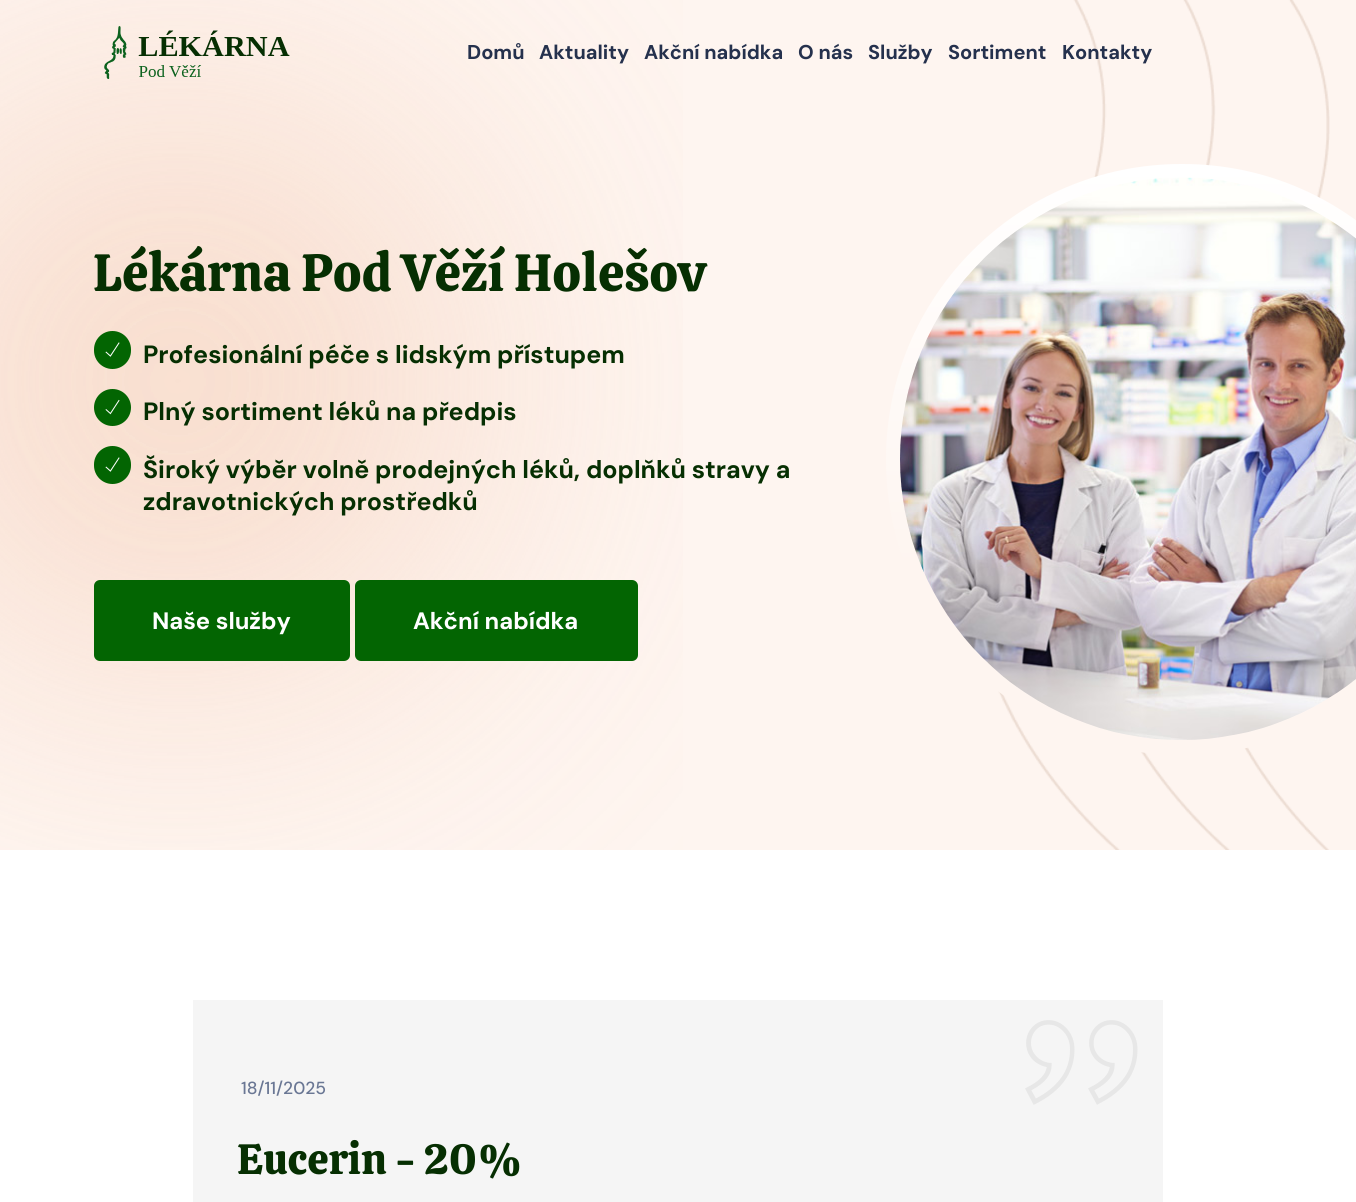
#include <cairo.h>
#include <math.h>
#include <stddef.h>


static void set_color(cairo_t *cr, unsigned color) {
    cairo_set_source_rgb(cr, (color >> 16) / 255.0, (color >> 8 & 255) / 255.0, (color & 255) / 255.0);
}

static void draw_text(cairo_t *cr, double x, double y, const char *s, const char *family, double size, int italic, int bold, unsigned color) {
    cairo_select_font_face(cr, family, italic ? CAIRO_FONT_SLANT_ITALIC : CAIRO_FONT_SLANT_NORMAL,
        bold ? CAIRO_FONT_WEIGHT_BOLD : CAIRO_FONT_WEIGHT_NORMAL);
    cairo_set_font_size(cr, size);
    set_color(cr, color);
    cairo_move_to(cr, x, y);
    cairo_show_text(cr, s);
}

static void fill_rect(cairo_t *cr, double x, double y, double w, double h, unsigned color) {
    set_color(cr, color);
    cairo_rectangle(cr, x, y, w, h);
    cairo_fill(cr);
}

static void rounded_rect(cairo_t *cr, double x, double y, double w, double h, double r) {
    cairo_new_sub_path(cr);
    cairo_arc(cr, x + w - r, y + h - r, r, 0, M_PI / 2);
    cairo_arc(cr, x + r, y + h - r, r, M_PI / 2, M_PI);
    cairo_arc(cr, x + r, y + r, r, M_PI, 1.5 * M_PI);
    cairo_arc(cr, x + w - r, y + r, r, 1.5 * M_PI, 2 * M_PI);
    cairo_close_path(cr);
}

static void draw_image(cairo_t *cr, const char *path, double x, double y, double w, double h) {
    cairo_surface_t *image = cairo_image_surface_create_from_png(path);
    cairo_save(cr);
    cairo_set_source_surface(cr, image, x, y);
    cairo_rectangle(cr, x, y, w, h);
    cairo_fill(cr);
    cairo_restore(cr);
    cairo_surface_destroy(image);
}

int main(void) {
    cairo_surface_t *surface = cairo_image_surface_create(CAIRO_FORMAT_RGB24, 1356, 1202);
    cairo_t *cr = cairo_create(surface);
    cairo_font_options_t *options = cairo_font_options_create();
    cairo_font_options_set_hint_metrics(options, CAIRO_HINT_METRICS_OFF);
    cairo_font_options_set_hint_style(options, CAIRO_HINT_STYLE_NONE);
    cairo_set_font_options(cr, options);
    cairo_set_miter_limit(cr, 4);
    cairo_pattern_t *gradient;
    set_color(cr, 0xFFFFFF);
    cairo_paint(cr);
    fill_rect(cr, 0, 0, 1356, 850, 0xFEF5F0);
    draw_image(cr, "assets/img2.png", 0, 0, 683, 850);
    draw_image(cr, "assets/img1.png", 104, 26, 186, 53);
    draw_text(cr, 467, 59, "Domů", "DM Sans", 20, 0, 1, 0x25314D);
    draw_text(cr, 539, 59, "Aktuality", "DM Sans", 20, 0, 1, 0x25314D);
    draw_text(cr, 644, 59, "Akční nabídka", "DM Sans", 20, 0, 1, 0x25314D);
    draw_text(cr, 798, 59, "O nás", "DM Sans", 20, 0, 1, 0x25314D);
    draw_text(cr, 868, 59, "Služby", "DM Sans", 20, 0, 1, 0x25314D);
    draw_image(cr, "assets/img3.png", 998, 0, 332, 850);
    draw_text(cr, 948, 59, "Sortiment", "DM Sans", 20, 0, 1, 0x25314D);
    draw_text(cr, 1062, 59, "Kontakty", "DM Sans", 20, 0, 1, 0x25314D);
    draw_text(cr, 93, 291, "Lékárna Pod Věží Holešov", "Calistoga", 52.5, 0, 0, 0x062F02);
    set_color(cr, 0x036502);
    rounded_rect(cr, 94, 331, 37, 38, 18.5);
    cairo_fill(cr);
    draw_image(cr, "assets/img4.png", 105, 342, 15, 15);
    draw_text(cr, 143, 363, "Profesionální péče s lidským přístupem", "DM Sans", 25, 0, 1, 0x062F02);
    set_color(cr, 0x036502);
    cairo_new_path(cr);
    cairo_arc(cr, 112.5, 407.5, 18.5, 0, 2 * M_PI);
    cairo_fill(cr);
    draw_image(cr, "assets/img5.png", 105, 399, 15, 16);
    draw_text(cr, 143, 420, "Plný sortiment léků na předpis", "DM Sans", 25, 0, 1, 0x062F02);
    set_color(cr, 0x036502);
    rounded_rect(cr, 94, 446, 37, 38, 18.5);
    cairo_fill(cr);
    draw_image(cr, "assets/img4.png", 105, 457, 15, 15);
    draw_text(cr, 143, 478, "Široký výběr volně prodejných léků, doplňků stravy a", "DM Sans", 25, 0, 1, 0x062F02);
    draw_text(cr, 143, 510, "zdravotnických prostředků", "DM Sans", 25, 0, 1, 0x062F02);
    set_color(cr, 0x036502);
    rounded_rect(cr, 94, 580, 256, 81, 6);
    cairo_fill(cr);
    draw_text(cr, 152, 629, "Naše služby", "DM Sans", 23.75, 0, 1, 0xFFFFFF);
    set_color(cr, 0x036502);
    rounded_rect(cr, 355, 580, 283, 81, 6);
    cairo_fill(cr);
    draw_text(cr, 413, 629, "Akční nabídka", "DM Sans", 23.75, 0, 1, 0xFFFFFF);
    gradient = cairo_pattern_create_linear(1182, 163, 1182, 755);
    cairo_pattern_add_color_stop_rgba(gradient, 0, 1, 1, 1, 1);
    cairo_pattern_add_color_stop_rgba(gradient, 0.69, 0.996, 0.961, 0.941, 1);
    cairo_set_source(cr, gradient);
    cairo_pattern_destroy(gradient);
    rounded_rect(cr, 886, 164, 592, 591, 295.5);
    cairo_fill(cr);
    draw_image(cr, "assets/img6.png", 900, 177, 456, 563);
    fill_rect(cr, 193, 1000, 970, 202, 0xF5F5F5);
    draw_text(cr, 241, 1094, "18/11/2025", "DM Sans Medium", 17.5, 0, 0, 0x6A7794);
    draw_image(cr, "assets/img7.png", 1025, 1020, 113, 85);
    draw_text(cr, 237, 1174, "Eucerin - 20%", "Calistoga", 42.5, 0, 0, 0x062F02);
    cairo_surface_write_to_png(surface, "output.png");
    cairo_font_options_destroy(options);
    cairo_destroy(cr);
    cairo_surface_destroy(surface);
    return 0;
}
